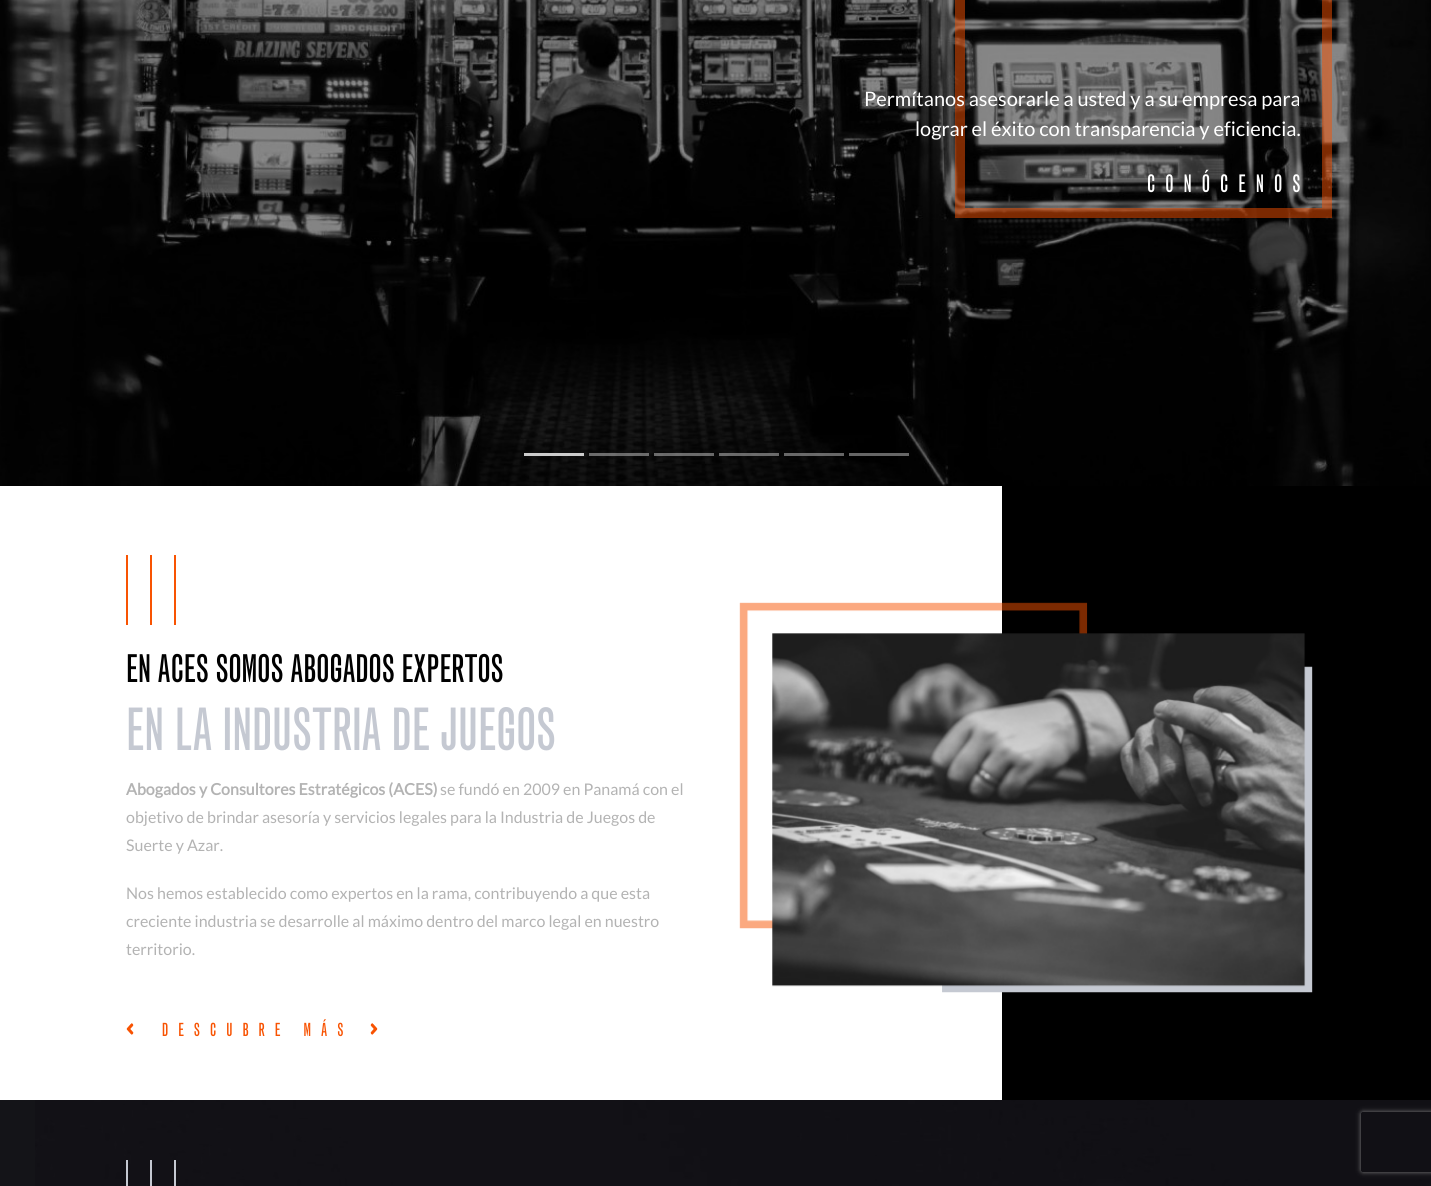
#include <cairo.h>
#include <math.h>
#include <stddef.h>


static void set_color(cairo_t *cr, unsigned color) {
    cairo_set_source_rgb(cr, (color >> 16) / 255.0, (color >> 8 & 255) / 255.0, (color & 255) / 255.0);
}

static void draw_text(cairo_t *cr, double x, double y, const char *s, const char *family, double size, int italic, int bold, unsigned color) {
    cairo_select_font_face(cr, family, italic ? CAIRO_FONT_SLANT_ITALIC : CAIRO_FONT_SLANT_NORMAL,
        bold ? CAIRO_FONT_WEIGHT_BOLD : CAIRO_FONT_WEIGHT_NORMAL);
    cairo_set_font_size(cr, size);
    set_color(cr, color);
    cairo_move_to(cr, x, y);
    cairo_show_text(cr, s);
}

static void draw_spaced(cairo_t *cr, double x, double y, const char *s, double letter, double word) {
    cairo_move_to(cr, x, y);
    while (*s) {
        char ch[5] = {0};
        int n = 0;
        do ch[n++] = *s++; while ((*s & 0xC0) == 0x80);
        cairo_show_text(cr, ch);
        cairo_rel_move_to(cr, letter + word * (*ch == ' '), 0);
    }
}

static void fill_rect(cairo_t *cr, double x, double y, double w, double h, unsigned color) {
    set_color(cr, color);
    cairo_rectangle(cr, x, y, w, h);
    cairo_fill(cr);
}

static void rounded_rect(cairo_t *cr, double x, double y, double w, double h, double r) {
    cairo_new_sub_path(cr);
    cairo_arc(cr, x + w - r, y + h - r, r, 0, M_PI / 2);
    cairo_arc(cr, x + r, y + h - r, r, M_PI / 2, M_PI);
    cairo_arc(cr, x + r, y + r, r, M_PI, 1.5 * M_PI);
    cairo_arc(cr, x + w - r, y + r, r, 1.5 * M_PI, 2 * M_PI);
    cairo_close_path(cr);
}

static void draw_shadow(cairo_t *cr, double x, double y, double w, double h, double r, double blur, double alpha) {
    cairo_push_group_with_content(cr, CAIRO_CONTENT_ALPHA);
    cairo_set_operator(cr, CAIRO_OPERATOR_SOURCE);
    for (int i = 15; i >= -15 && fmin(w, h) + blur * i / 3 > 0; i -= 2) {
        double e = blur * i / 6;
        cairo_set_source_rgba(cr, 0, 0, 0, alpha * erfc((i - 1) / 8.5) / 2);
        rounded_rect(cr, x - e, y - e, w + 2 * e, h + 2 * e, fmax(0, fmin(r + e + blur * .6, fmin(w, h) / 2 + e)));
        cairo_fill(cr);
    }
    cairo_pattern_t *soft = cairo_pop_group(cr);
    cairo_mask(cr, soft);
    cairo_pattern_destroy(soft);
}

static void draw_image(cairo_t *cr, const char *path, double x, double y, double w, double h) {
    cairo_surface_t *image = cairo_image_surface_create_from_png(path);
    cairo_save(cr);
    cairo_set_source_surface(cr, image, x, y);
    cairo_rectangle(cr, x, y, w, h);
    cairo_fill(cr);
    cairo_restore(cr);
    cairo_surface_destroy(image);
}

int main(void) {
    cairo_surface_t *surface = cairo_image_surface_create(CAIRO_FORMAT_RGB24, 1431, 1186);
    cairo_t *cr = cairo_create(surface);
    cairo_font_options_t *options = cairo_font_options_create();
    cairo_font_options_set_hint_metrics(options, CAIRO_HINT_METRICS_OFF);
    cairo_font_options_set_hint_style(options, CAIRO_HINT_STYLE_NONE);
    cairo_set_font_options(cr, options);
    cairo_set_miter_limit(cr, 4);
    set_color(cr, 0xFFFFFF);
    cairo_paint(cr);
    draw_image(cr, "assets/img1.png", 0, 0, 1431, 486);
    cairo_rectangle(cr, 960, -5, 367, 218);
    cairo_set_source_rgba(cr, 0.973, 0.325, 0.008, 0.5);
    cairo_set_line_width(cr, 10);
    cairo_stroke(cr);
    draw_text(cr, 864, 106, "Permítanos asesorarle a usted y a su empresa para", "Lato", 20, 0, 0, 0xFFFFFF);
    draw_text(cr, 915, 136, "lograr el éxito con transparencia y eficiencia.", "Lato", 20, 0, 0, 0xFFFFFF);
    cairo_select_font_face(cr, "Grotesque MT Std", CAIRO_FONT_SLANT_NORMAL, CAIRO_FONT_WEIGHT_NORMAL);
    cairo_set_font_size(cr, 24);
    draw_spaced(cr, 1147, 192, "CONÓCENOS", 10, 0);
    fill_rect(cr, 524, 453, 60, 3, 0xCCCCCC);
    cairo_set_source_rgba(cr, 0.8, 0.8, 0.8, 0.5);
    cairo_rectangle(cr, 589, 453, 60, 3);
    cairo_fill(cr);
    cairo_rectangle(cr, 654, 453, 60, 3);
    cairo_fill(cr);
    cairo_rectangle(cr, 719, 453, 60, 3);
    cairo_fill(cr);
    cairo_rectangle(cr, 784, 453, 60, 3);
    cairo_fill(cr);
    cairo_rectangle(cr, 849, 453, 60, 3);
    cairo_fill(cr);
    draw_image(cr, "assets/img2.png", 0, 486, 1431, 614);
    draw_image(cr, "assets/img3.png", 126, 555, 50, 70);
    draw_text(cr, 126, 682, "EN ACES SOMOS ABOGADOS EXPERTOS", "Grotesque MT Std", 38, 0, 0, 0x000000);
    draw_text(cr, 126, 750, "EN LA INDUSTRIA DE JUEGOS", "Grotesque MT Std", 58, 0, 0, 0xC5C9D2);
    draw_text(cr, 126, 795, "Abogados y Consultores Estratégicos (ACES)", "Lato", 16, 0, 1, 0xB3B3B3);
    draw_text(cr, 440, 795, "se fundó en 2009 en Panamá con el", "Lato", 16, 0, 0, 0xB3B3B3);
    draw_text(cr, 126, 823, "objetivo de brindar asesoría y servicios legales para la Industria de Juegos de", "Lato", 16, 0, 0, 0xB3B3B3);
    draw_text(cr, 126, 851, "Suerte y Azar.", "Lato", 16, 0, 0, 0xB3B3B3);
    draw_text(cr, 126, 899, "Nos hemos establecido como expertos en la rama, contribuyendo a que esta", "Lato", 16, 0, 0, 0xB3B3B3);
    draw_text(cr, 126, 927, "creciente industria se desarrolle al máximo dentro del marco legal en nuestro", "Lato", 16, 0, 0, 0xB3B3B3);
    draw_text(cr, 126, 955, "territorio.", "Lato", 16, 0, 0, 0xB3B3B3);
    draw_image(cr, "assets/img4.png", 126, 1023, 8, 12);
    draw_image(cr, "assets/img5.png", 126, 1023, 8, 12);
    cairo_select_font_face(cr, "Grotesque MT Std", CAIRO_FONT_SLANT_NORMAL, CAIRO_FONT_WEIGHT_NORMAL);
    cairo_set_font_size(cr, 18);
    set_color(cr, 0xF85302);
    draw_spaced(cr, 162, 1036, "DESCUBRE MÁS", 10, 0);
    draw_image(cr, "assets/img6.png", 370, 1023, 8, 12);
    draw_image(cr, "assets/img7.png", 370, 1023, 8, 12);
    draw_image(cr, "assets/img8.png", 739, 602, 574, 391);
    fill_rect(cr, 0, 1100, 35, 86, 0x141418);
    draw_image(cr, "assets/img9.png", 35, 1100, 1396, 86);
    draw_image(cr, "assets/img10.png", 126, 1160, 50, 26);
    cairo_save(cr);
    cairo_set_fill_rule(cr, CAIRO_FILL_RULE_EVEN_ODD);
    cairo_new_path(cr);
    cairo_move_to(cr, 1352, 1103);
    cairo_line_to(cr, 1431, 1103);
    cairo_line_to(cr, 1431, 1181);
    cairo_line_to(cr, 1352, 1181);
    cairo_close_path(cr);
    cairo_move_to(cr, 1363, 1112);
    cairo_line_to(cr, 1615, 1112);
    cairo_curve_to(cr, 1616, 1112, 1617, 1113, 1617, 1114);
    cairo_line_to(cr, 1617, 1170);
    cairo_curve_to(cr, 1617, 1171, 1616, 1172, 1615, 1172);
    cairo_line_to(cr, 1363, 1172);
    cairo_curve_to(cr, 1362, 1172, 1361, 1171, 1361, 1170);
    cairo_line_to(cr, 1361, 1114);
    cairo_curve_to(cr, 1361, 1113, 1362, 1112, 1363, 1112);
    cairo_close_path(cr);
    cairo_clip(cr);
    set_color(cr, 0x808080);
    draw_shadow(cr, 1361, 1112, 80, 60, 2, 2.5, 1);
    cairo_restore(cr);
    cairo_surface_write_to_png(surface, "output.png");
    cairo_font_options_destroy(options);
    cairo_destroy(cr);
    cairo_surface_destroy(surface);
    return 0;
}
